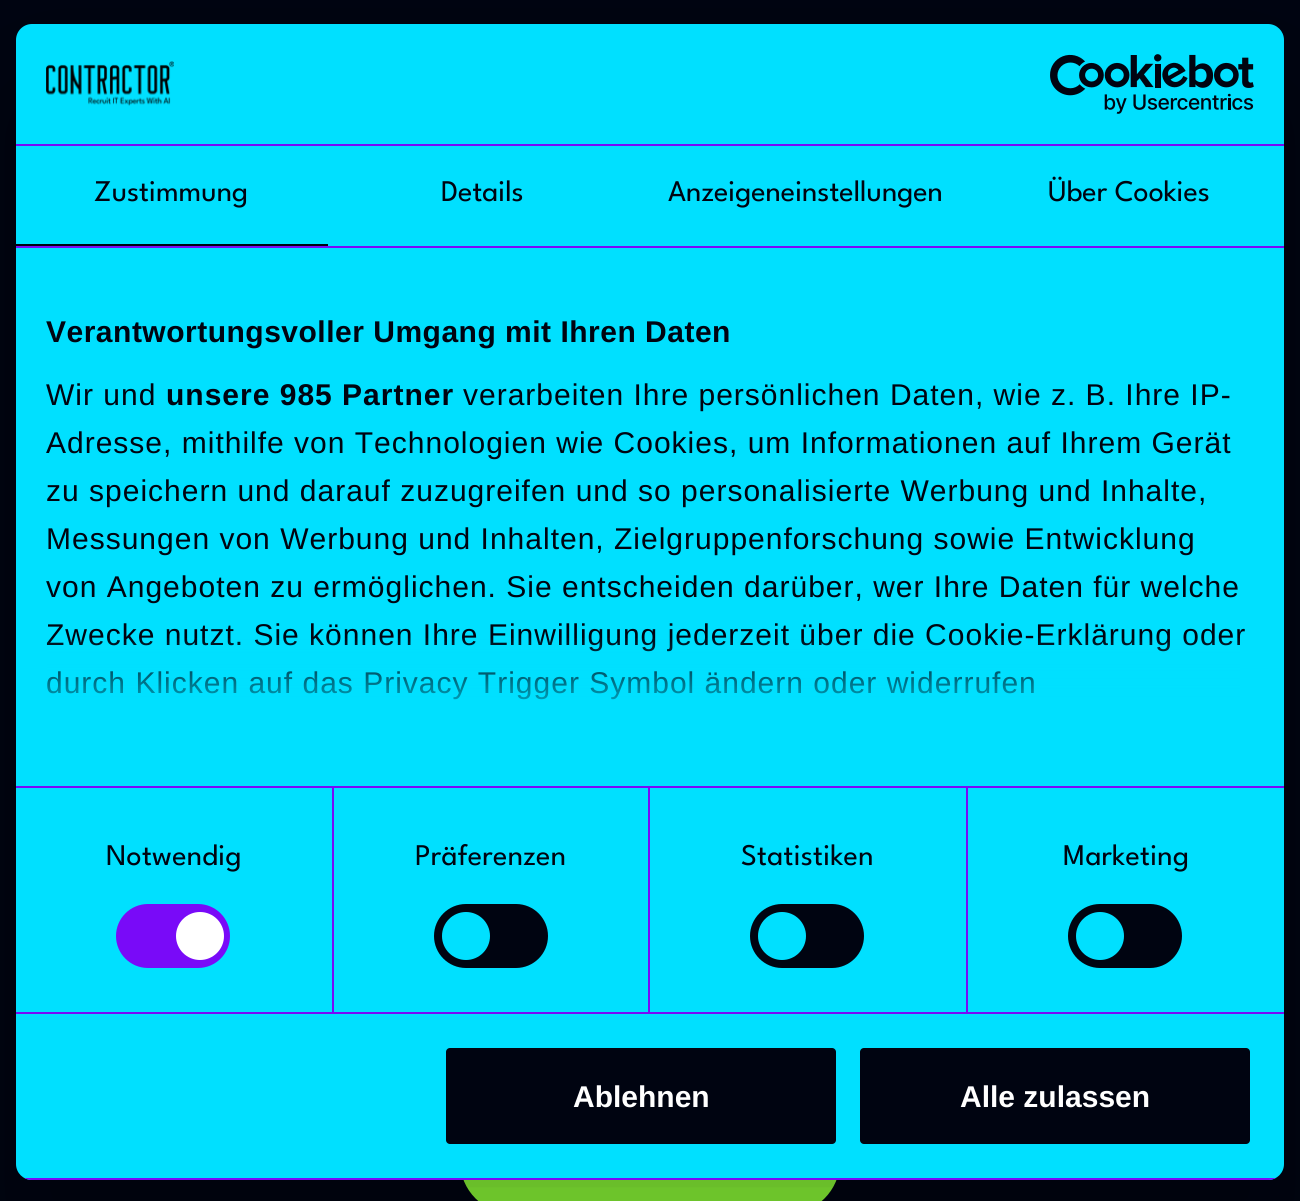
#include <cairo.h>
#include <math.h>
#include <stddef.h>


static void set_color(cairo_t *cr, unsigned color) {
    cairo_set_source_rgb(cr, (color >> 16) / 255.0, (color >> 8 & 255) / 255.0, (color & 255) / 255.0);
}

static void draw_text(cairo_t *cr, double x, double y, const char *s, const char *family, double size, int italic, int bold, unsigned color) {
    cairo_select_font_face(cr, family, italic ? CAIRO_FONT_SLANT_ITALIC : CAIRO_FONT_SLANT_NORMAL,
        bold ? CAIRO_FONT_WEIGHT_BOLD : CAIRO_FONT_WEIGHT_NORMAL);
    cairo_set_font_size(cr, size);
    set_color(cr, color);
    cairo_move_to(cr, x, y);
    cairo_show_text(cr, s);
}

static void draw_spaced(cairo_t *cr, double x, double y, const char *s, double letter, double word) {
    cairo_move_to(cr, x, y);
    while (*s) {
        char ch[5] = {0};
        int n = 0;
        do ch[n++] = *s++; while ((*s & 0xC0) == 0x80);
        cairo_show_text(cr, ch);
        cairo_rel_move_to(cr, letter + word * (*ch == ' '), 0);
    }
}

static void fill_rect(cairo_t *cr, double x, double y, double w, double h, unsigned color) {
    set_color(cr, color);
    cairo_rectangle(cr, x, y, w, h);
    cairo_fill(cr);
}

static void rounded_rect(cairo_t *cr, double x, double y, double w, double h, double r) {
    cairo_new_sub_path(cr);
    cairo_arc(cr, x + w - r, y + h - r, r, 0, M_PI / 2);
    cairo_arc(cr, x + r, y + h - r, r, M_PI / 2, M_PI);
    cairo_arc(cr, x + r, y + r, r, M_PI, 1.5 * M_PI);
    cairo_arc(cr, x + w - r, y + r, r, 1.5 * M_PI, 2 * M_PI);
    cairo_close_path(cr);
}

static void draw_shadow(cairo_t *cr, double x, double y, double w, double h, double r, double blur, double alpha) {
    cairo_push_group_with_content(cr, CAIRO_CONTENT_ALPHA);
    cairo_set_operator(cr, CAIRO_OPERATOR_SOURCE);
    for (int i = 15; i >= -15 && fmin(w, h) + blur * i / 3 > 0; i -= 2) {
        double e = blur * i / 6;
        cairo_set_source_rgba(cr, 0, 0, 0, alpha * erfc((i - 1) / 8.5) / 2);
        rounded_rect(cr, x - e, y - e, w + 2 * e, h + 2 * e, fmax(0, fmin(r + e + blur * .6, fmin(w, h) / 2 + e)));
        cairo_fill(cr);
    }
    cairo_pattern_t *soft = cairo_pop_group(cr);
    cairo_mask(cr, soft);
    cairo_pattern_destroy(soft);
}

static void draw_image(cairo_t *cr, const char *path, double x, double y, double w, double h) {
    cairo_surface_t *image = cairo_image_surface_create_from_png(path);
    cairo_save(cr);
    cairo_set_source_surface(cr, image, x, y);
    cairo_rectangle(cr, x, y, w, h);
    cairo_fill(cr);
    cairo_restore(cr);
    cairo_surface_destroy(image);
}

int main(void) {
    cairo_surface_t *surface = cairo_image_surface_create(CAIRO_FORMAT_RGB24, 1300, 1201);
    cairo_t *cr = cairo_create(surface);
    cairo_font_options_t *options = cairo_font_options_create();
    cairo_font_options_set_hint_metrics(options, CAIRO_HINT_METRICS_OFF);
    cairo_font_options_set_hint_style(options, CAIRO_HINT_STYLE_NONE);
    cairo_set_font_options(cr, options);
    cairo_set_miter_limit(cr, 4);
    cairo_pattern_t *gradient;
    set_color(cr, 0x000411);
    cairo_paint(cr);
    set_color(cr, 0x8DFD38);
    rounded_rect(cr, 460, 1108, 380, 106, 53);
    cairo_fill(cr);
    set_color(cr, 0x000000);
    draw_shadow(cr, 16, 88, 1268, 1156, 16, 68, 0.3);
    set_color(cr, 0x00E0FF);
    rounded_rect(cr, 16, 24, 1268, 1156, 16);
    cairo_fill(cr);
    fill_rect(cr, 16, 144, 1268, 2, 0x790AF8);
    draw_image(cr, "assets/img1.png", 46, 61, 128, 45);
    draw_image(cr, "assets/img2.png", 1050, 54, 204, 60);
    fill_rect(cr, 16, 246, 1268, 2, 0x790AF8);
    fill_rect(cr, 16, 244, 312, 2, 0x000411);
    draw_text(cr, 94, 201, "Zustimmung", "League Spartan", 30, 0, 0, 0x000411);
    draw_text(cr, 441, 201, "Details", "League Spartan", 30, 0, 0, 0x000411);
    draw_text(cr, 668, 201, "Anzeigeneinstellungen", "League Spartan", 30, 0, 0, 0x000411);
    draw_text(cr, 1048, 201, "Über Cookies", "League Spartan", 30, 0, 0, 0x000411);
    fill_rect(cr, 16, 786, 1268, 2, 0x790AF8);
    cairo_select_font_face(cr, "Liberation Sans", CAIRO_FONT_SLANT_NORMAL, CAIRO_FONT_WEIGHT_BOLD);
    set_color(cr, 0x000411);
    draw_spaced(cr, 46, 342, "Verantwortungsvoller Umgang mit Ihren Daten", 0.5, 0);
    cairo_select_font_face(cr, "Liberation Sans", CAIRO_FONT_SLANT_NORMAL, CAIRO_FONT_WEIGHT_NORMAL);
    draw_spaced(cr, 46, 405, "Wir und", 1, 0);
    cairo_select_font_face(cr, "Liberation Sans", CAIRO_FONT_SLANT_NORMAL, CAIRO_FONT_WEIGHT_BOLD);
    draw_spaced(cr, 166, 405, "unsere 985 Partner", 1, 0);
    cairo_select_font_face(cr, "Liberation Sans", CAIRO_FONT_SLANT_NORMAL, CAIRO_FONT_WEIGHT_NORMAL);
    draw_spaced(cr, 463, 405, "verarbeiten Ihre persönlichen Daten, wie z. B. Ihre IP-", 1, 0);
    draw_spaced(cr, 46, 453, "Adresse, mithilfe von Technologien wie Cookies, um Informationen auf Ihrem Gerät", 1, 0);
    draw_spaced(cr, 46, 501, "zu speichern und darauf zuzugreifen und so personalisierte Werbung und Inhalte,", 1, 0);
    draw_spaced(cr, 46, 549, "Messungen von Werbung und Inhalten, Zielgruppenforschung sowie Entwicklung", 1, 0);
    draw_spaced(cr, 46, 597, "von Angeboten zu ermöglichen. Sie entscheiden darüber, wer Ihre Daten für welche", 1, 0);
    draw_spaced(cr, 46, 645, "Zwecke nutzt. Sie können Ihre Einwilligung jederzeit über die Cookie-Erklärung oder", 1, 0);
    draw_spaced(cr, 46, 693, "durch Klicken auf das Privacy Trigger Symbol ändern oder widerrufen", 1, 0);
    gradient = cairo_pattern_create_linear(637, 786, 637, 636);
    cairo_pattern_add_color_stop_rgba(gradient, 0, 0, 0.878, 1, 1);
    cairo_pattern_add_color_stop_rgba(gradient, 0.5, 0, 0.878, 1, 0.8);
    cairo_pattern_add_color_stop_rgba(gradient, 1, 0, 0.878, 1, 0);
    cairo_set_source(cr, gradient);
    cairo_pattern_destroy(gradient);
    cairo_rectangle(cr, 47, 638, 1193, 62);
    cairo_fill(cr);
    fill_rect(cr, 16, 1012, 1268, 2, 0x790AF8);
    fill_rect(cr, 332, 788, 2, 224, 0x790AF8);
    cairo_select_font_face(cr, "League Spartan", CAIRO_FONT_SLANT_NORMAL, CAIRO_FONT_WEIGHT_NORMAL);
    set_color(cr, 0x000411);
    draw_spaced(cr, 106, 865, "Notwendig", 0.25, 0);
    set_color(cr, 0x790AF8);
    rounded_rect(cr, 116, 904, 114, 64, 32);
    cairo_fill(cr);
    set_color(cr, 0xFFFFFF);
    cairo_arc(cr, 200, 936, 24, 0, 2 * M_PI);
    cairo_fill(cr);
    fill_rect(cr, 648, 788, 2, 224, 0x790AF8);
    set_color(cr, 0x000411);
    draw_spaced(cr, 415, 865, "Präferenzen", 0.25, 0);
    rounded_rect(cr, 434, 904, 114, 64, 32);
    cairo_fill(cr);
    set_color(cr, 0x00E0FF);
    cairo_arc(cr, 466, 936, 24, 0, 2 * M_PI);
    cairo_fill(cr);
    fill_rect(cr, 966, 788, 2, 224, 0x790AF8);
    set_color(cr, 0x000411);
    draw_spaced(cr, 741, 865, "Statistiken", 0.25, 0);
    rounded_rect(cr, 750, 904, 114, 64, 32);
    cairo_fill(cr);
    set_color(cr, 0x00E0FF);
    cairo_arc(cr, 782, 936, 24, 0, 2 * M_PI);
    cairo_fill(cr);
    set_color(cr, 0x000411);
    draw_spaced(cr, 1063, 865, "Marketing", 0.25, 0);
    rounded_rect(cr, 1068, 904, 114, 64, 32);
    cairo_fill(cr);
    set_color(cr, 0x00E0FF);
    cairo_arc(cr, 1100, 936, 24, 0, 2 * M_PI);
    cairo_fill(cr);
    cairo_save(cr);
    rounded_rect(cr, 16, 24, 1268, 1156, 16);
    cairo_clip(cr);
    fill_rect(cr, 16, 1178, 1268, 2, 0x790AF8);
    cairo_restore(cr);
    set_color(cr, 0x000411);
    rounded_rect(cr, 444, 1046, 394, 100, 6);
    cairo_fill_preserve(cr);
    set_color(cr, 0x00E0FF);
    cairo_set_line_width(cr, 4);
    cairo_stroke(cr);
    draw_text(cr, 573, 1107, "Ablehnen", "Liberation Sans", 30, 0, 1, 0xFFFFFF);
    set_color(cr, 0x000411);
    rounded_rect(cr, 858, 1046, 394, 100, 6);
    cairo_fill_preserve(cr);
    set_color(cr, 0x00E0FF);
    cairo_stroke(cr);
    draw_text(cr, 960, 1107, "Alle zulassen", "Liberation Sans", 30, 0, 1, 0xFFFFFF);
    cairo_surface_write_to_png(surface, "output.png");
    cairo_font_options_destroy(options);
    cairo_destroy(cr);
    cairo_surface_destroy(surface);
    return 0;
}
